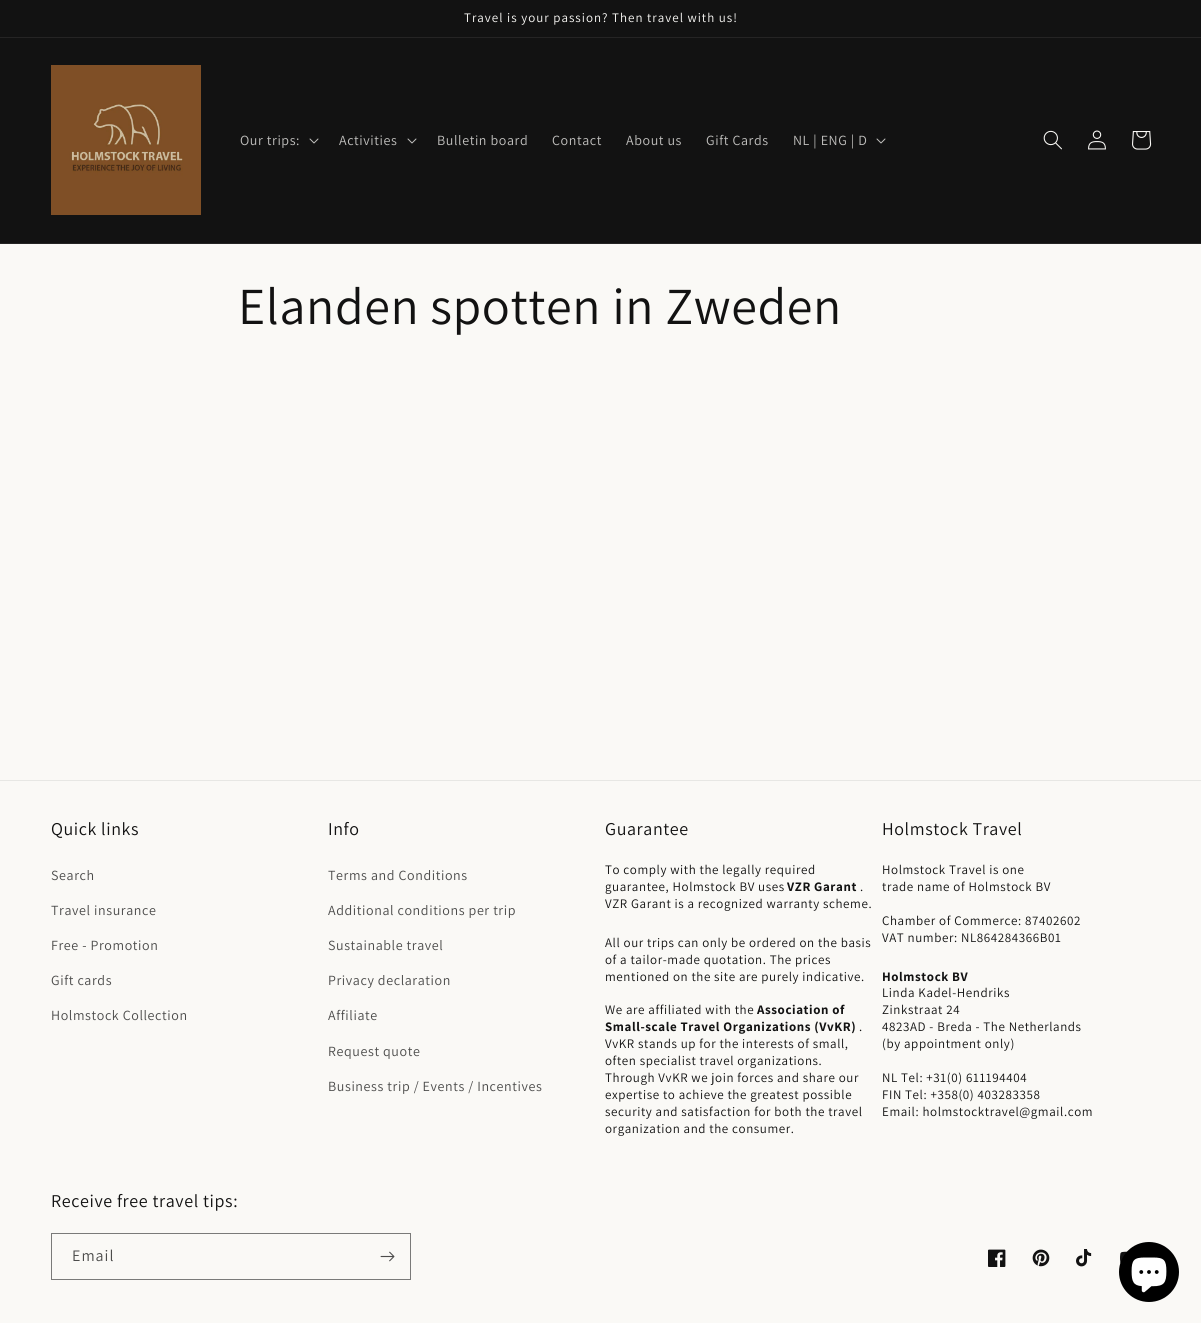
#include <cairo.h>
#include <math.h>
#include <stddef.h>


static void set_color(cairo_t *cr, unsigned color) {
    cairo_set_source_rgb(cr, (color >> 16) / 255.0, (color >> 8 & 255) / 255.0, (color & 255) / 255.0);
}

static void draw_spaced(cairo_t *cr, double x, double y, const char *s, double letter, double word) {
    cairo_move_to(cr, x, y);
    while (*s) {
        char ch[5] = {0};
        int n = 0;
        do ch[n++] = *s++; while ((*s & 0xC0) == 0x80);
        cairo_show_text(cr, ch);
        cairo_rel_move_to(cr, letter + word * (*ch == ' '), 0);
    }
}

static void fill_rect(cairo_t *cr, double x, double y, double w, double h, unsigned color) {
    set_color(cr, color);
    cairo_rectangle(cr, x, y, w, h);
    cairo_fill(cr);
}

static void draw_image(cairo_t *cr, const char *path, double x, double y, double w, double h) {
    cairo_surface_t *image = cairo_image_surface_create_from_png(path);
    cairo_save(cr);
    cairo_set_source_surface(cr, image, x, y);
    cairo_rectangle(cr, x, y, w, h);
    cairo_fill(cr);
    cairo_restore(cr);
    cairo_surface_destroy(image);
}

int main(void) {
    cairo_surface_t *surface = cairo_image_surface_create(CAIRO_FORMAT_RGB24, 1201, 1323);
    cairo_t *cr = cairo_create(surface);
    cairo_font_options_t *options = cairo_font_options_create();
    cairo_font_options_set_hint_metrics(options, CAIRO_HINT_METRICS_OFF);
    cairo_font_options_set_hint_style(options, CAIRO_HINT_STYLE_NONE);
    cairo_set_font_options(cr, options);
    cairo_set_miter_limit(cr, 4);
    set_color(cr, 0xFAF9F6);
    cairo_paint(cr);
    fill_rect(cr, 0, 0, 1201, 37, 0x121212);
    fill_rect(cr, 0, 37, 1201, 1, 0x252424);
    cairo_select_font_face(cr, "Assistant", CAIRO_FONT_SLANT_NORMAL, CAIRO_FONT_WEIGHT_NORMAL);
    cairo_set_font_size(cr, 13);
    set_color(cr, 0xFAF9F6);
    draw_spaced(cr, 464, 22, "Travel is your passion? Then travel with us!", 1, 0);
    fill_rect(cr, 0, 38, 1201, 205, 0x121212);
    fill_rect(cr, 0, 243, 1201, 1, 0x252424);
    draw_image(cr, "assets/img1.png", 51, 65, 150, 150);
    cairo_set_font_size(cr, 14);
    set_color(cr, 0xC0BFBD);
    draw_spaced(cr, 240, 145, "Our trips:", 0.6, 0);
    draw_image(cr, "assets/img2.png", 309, 138, 10, 6);
    draw_spaced(cr, 339, 145, "Activities", 0.6, 0);
    draw_image(cr, "assets/img2.png", 407, 138, 10, 6);
    draw_spaced(cr, 437, 145, "Bulletin board", 0.6, 0);
    draw_spaced(cr, 552, 145, "Contact", 0.6, 0);
    draw_spaced(cr, 626, 145, "About us", 0.6, 0);
    draw_spaced(cr, 706, 145, "Gift Cards", 0.6, 0);
    draw_spaced(cr, 793, 145, "NL | ENG | D", 0.6, 0);
    draw_image(cr, "assets/img2.png", 876, 138, 10, 6);
    draw_image(cr, "assets/img3.png", 1043, 130, 19, 20);
    draw_image(cr, "assets/img4.png", 1088, 130, 18, 20);
    draw_image(cr, "assets/img5.png", 1132, 131, 20, 19);
    cairo_set_font_size(cr, 52);
    set_color(cr, 0x121212);
    draw_spaced(cr, 238, 324, "Elanden spotten in Zweden", 0.6, 0);
    fill_rect(cr, 0, 780, 1201, 1, 0xE7E7E4);
    cairo_set_font_size(cr, 18);
    set_color(cr, 0x121212);
    draw_spaced(cr, 51, 835, "Quick links", 0.6, 0);
    cairo_set_font_size(cr, 14);
    set_color(cr, 0x4C4C4B);
    draw_spaced(cr, 51, 880, "Search", 0.6, 0);
    draw_spaced(cr, 51, 915, "Travel insurance", 0.6, 0);
    draw_spaced(cr, 51, 950, "Free - Promotion", 0.6, 0);
    draw_spaced(cr, 51, 985, "Gift cards", 0.6, 0);
    draw_spaced(cr, 51, 1020, "Holmstock Collection", 0.6, 0);
    cairo_set_font_size(cr, 18);
    set_color(cr, 0x121212);
    draw_spaced(cr, 328, 835, "Info", 0.6, 0);
    cairo_set_font_size(cr, 14);
    set_color(cr, 0x4C4C4B);
    draw_spaced(cr, 328, 880, "Terms and Conditions", 0.6, 0);
    draw_spaced(cr, 328, 915, "Additional conditions per trip", 0.6, 0);
    draw_spaced(cr, 328, 950, "Sustainable travel", 0.6, 0);
    draw_spaced(cr, 328, 985, "Privacy declaration", 0.6, 0);
    draw_spaced(cr, 328, 1020, "Affiliate", 0.6, 0);
    draw_spaced(cr, 328, 1056, "Request quote", 0.6, 0);
    draw_spaced(cr, 328, 1091, "Business trip / Events / Incentives", 0.6, 0);
    cairo_set_font_size(cr, 18);
    set_color(cr, 0x121212);
    draw_spaced(cr, 605, 835, "Guarantee", 0.6, 0);
    cairo_set_font_size(cr, 13);
    draw_spaced(cr, 605, 874, "To comply with the legally required", 0.6, 0);
    draw_spaced(cr, 605, 891, "guarantee, Holmstock BV uses", 0.6, 0);
    cairo_select_font_face(cr, "Assistant", CAIRO_FONT_SLANT_NORMAL, CAIRO_FONT_WEIGHT_BOLD);
    draw_spaced(cr, 787, 891, "VZR Garant", 0.6, 0);
    cairo_select_font_face(cr, "Assistant", CAIRO_FONT_SLANT_NORMAL, CAIRO_FONT_WEIGHT_NORMAL);
    draw_spaced(cr, 860, 891, ".", 0.6, 0);
    draw_spaced(cr, 605, 908, "VZR Garant is a recognized warranty scheme.", 0.6, 0);
    draw_spaced(cr, 605, 947, "All our trips can only be ordered on the basis", 0.6, 0);
    draw_spaced(cr, 605, 964, "of a tailor-made quotation. The prices", 0.6, 0);
    draw_spaced(cr, 605, 981, "mentioned on the site are purely indicative.", 0.6, 0);
    draw_spaced(cr, 605, 1014, "We are affiliated with the", 0.6, 0);
    cairo_select_font_face(cr, "Assistant", CAIRO_FONT_SLANT_NORMAL, CAIRO_FONT_WEIGHT_BOLD);
    draw_spaced(cr, 757, 1014, "Association of", 0.6, 0);
    draw_spaced(cr, 605, 1031, "Small-scale Travel Organizations (VvKR)", 0.6, 0);
    cairo_select_font_face(cr, "Assistant", CAIRO_FONT_SLANT_NORMAL, CAIRO_FONT_WEIGHT_NORMAL);
    draw_spaced(cr, 859, 1031, ".", 0.6, 0);
    draw_spaced(cr, 605, 1048, "VvKR stands up for the interests of small,", 0.6, 0);
    draw_spaced(cr, 605, 1065, "often specialist travel organizations.", 0.6, 0);
    draw_spaced(cr, 605, 1082, "Through VvKR we join forces and share our", 0.6, 0);
    draw_spaced(cr, 605, 1099, "expertise to achieve the greatest possible", 0.6, 0);
    draw_spaced(cr, 605, 1116, "security and satisfaction for both the travel", 0.6, 0);
    draw_spaced(cr, 605, 1133, "organization and the consumer.", 0.6, 0);
    cairo_set_font_size(cr, 18);
    draw_spaced(cr, 882, 835, "Holmstock Travel", 0.6, 0);
    cairo_set_font_size(cr, 13);
    draw_spaced(cr, 882, 874, "Holmstock Travel is one", 0.6, 0);
    draw_spaced(cr, 882, 891, "trade name of Holmstock BV", 0.6, 0);
    draw_spaced(cr, 882, 925, "Chamber of Commerce: 87402602", 0.6, 0);
    draw_spaced(cr, 882, 942, "VAT number: NL864284366B01", 0.6, 0);
    cairo_select_font_face(cr, "Assistant", CAIRO_FONT_SLANT_NORMAL, CAIRO_FONT_WEIGHT_BOLD);
    draw_spaced(cr, 882, 981, "Holmstock BV", 0.6, 0);
    cairo_select_font_face(cr, "Assistant", CAIRO_FONT_SLANT_NORMAL, CAIRO_FONT_WEIGHT_NORMAL);
    draw_spaced(cr, 882, 997, "Linda Kadel-Hendriks", 0.6, 0);
    draw_spaced(cr, 882, 1014, "Zinkstraat 24", 0.6, 0);
    draw_spaced(cr, 882, 1031, "4823AD - Breda - The Netherlands", 0.6, 0);
    draw_spaced(cr, 882, 1048, "(by appointment only)", 0.6, 0);
    draw_spaced(cr, 882, 1082, "NL Tel: +31(0) 611194404", 0.6, 0);
    draw_spaced(cr, 882, 1099, "FIN Tel: +358(0) 403283358", 0.6, 0);
    draw_spaced(cr, 882, 1116, "Email: holmstocktravel@gmail.com", 0.6, 0);
    cairo_set_font_size(cr, 18);
    draw_spaced(cr, 51, 1207, "Receive free travel tips:", 0.6, 0);
    cairo_rectangle(cr, 51.5, 1233.5, 359, 46);
    set_color(cr, 0x7A7A79);
    cairo_set_line_width(cr, 1);
    cairo_stroke(cr);
    cairo_set_font_size(cr, 16);
    set_color(cr, 0x4C4C4B);
    draw_spaced(cr, 72, 1261, "Email", 1, 0);
    draw_image(cr, "assets/img6.png", 380, 1251, 15, 11);
    draw_image(cr, "assets/img7.png", 988, 1249, 18, 18);
    draw_image(cr, "assets/img8.png", 1032, 1249, 18, 18);
    draw_image(cr, "assets/img9.png", 1076, 1249, 16, 18);
    draw_image(cr, "assets/img10.png", 1120, 1251, 8, 13);
    set_color(cr, 0x000000);
    cairo_arc(cr, 1149, 1272, 30, 0, 2 * M_PI);
    cairo_fill(cr);
    draw_image(cr, "assets/img11.png", 1131, 1257, 36, 36);
    cairo_surface_write_to_png(surface, "output.png");
    cairo_font_options_destroy(options);
    cairo_destroy(cr);
    cairo_surface_destroy(surface);
    return 0;
}
